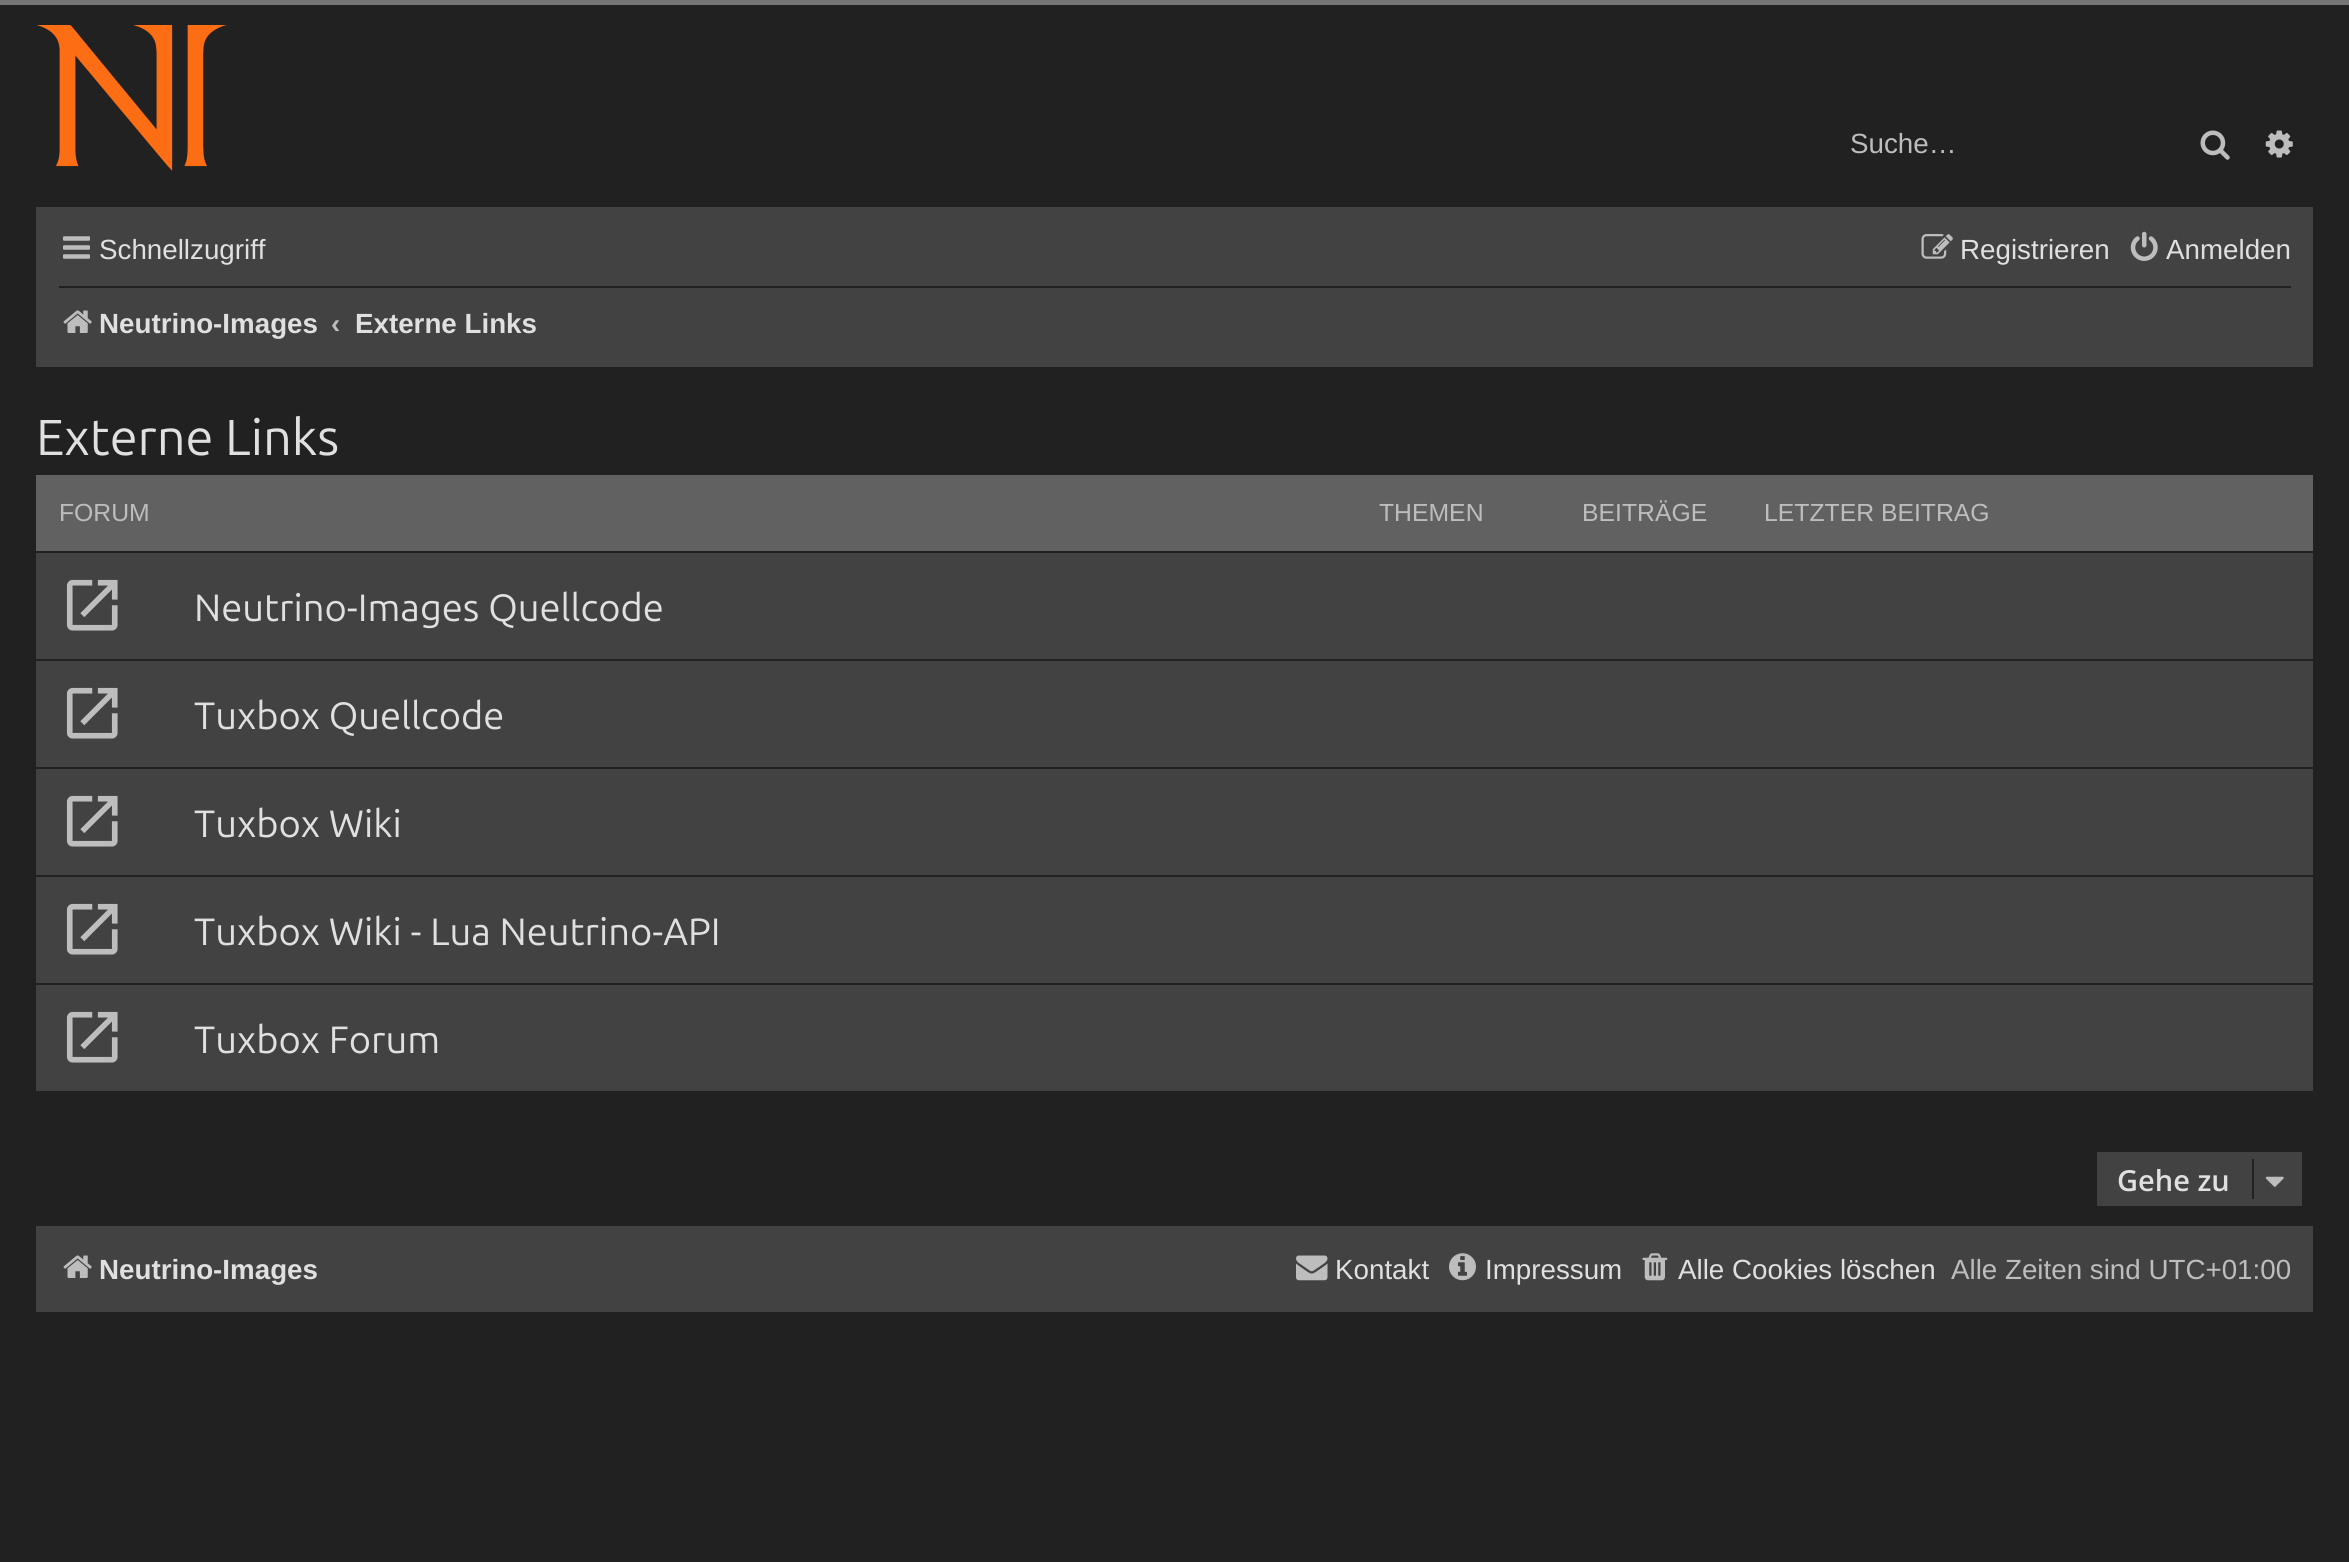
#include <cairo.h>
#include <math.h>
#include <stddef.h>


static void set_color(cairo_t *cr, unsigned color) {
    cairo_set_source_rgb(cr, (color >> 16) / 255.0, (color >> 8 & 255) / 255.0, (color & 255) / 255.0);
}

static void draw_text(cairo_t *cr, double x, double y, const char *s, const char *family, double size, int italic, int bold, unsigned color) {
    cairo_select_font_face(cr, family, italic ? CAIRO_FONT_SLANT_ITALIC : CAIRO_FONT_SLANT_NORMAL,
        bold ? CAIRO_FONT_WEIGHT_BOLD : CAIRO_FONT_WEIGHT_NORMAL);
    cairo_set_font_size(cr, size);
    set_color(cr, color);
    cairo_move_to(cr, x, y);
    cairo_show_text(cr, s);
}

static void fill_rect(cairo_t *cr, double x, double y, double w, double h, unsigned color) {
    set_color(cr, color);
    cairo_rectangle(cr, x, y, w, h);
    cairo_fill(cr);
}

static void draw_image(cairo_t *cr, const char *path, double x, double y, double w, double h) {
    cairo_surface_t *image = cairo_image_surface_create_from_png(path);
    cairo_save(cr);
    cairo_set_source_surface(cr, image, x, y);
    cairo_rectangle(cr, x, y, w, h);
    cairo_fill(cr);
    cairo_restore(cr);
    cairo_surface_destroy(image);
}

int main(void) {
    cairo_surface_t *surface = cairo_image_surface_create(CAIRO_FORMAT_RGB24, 2349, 1562);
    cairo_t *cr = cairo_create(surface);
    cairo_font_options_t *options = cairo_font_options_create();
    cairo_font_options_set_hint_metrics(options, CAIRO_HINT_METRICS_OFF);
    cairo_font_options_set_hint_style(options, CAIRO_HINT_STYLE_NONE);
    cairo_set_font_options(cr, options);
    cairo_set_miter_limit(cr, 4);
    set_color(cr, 0x212121);
    cairo_paint(cr);
    fill_rect(cr, 0, 0, 2349, 5, 0x757575);
    draw_image(cr, "assets/img1.png", 37, 25, 190, 146);
    draw_text(cr, 1850, 153, "Suche…", "Liberation Sans", 27.75, 0, 0, 0xBDBDBD);
    draw_image(cr, "assets/img2.png", 2200, 130, 30, 30);
    draw_image(cr, "assets/img3.png", 2265, 130, 28, 28);
    fill_rect(cr, 36, 207, 2277, 160, 0x424242);
    draw_image(cr, "assets/img4.png", 63, 236, 27, 23);
    draw_text(cr, 99, 259, "Schnellzugriff", "Liberation Sans", 27.75, 0, 0, 0xE0E0E0);
    draw_image(cr, "assets/img5.png", 1921, 234, 32, 25);
    draw_text(cr, 1960, 259, "Registrieren", "Liberation Sans", 27.75, 0, 0, 0xE0E0E0);
    draw_image(cr, "assets/img6.png", 2130, 231, 28, 30);
    draw_text(cr, 2166, 259, "Anmelden", "Liberation Sans", 27.75, 0, 0, 0xE0E0E0);
    fill_rect(cr, 59, 286, 2232, 2, 0x212121);
    draw_image(cr, "assets/img7.png", 63, 310, 29, 23);
    draw_text(cr, 99, 333, "Neutrino-Images", "Liberation Sans", 27.75, 0, 1, 0xE0E0E0);
    draw_text(cr, 331, 333, "‹", "Liberation Sans", 27.75, 0, 1, 0xBDBDBD);
    draw_text(cr, 355, 333, "Externe Links", "Liberation Sans", 27.75, 0, 1, 0xE0E0E0);
    draw_text(cr, 36, 455, "Externe Links", "Ubuntu", 50.5, 0, 0, 0xE0E0E0);
    fill_rect(cr, 36, 553, 2277, 538, 0x424242);
    fill_rect(cr, 36, 475, 2277, 76, 0x616161);
    draw_text(cr, 59, 521, "FORUM", "Liberation Sans", 24.75, 0, 0, 0xBDBDBD);
    draw_text(cr, 1379, 521, "THEMEN", "Liberation Sans", 24.75, 0, 0, 0xBDBDBD);
    draw_text(cr, 1582, 521, "BEITRÄGE", "Liberation Sans", 24.75, 0, 0, 0xBDBDBD);
    draw_text(cr, 1764, 521, "LETZTER BEITRAG", "Liberation Sans", 24.75, 0, 0, 0xBDBDBD);
    draw_image(cr, "assets/img8.png", 66, 579, 52, 52);
    draw_text(cr, 194, 621, "Neutrino-Images Quellcode", "Ubuntu", 38.1, 0, 0, 0xE0E0E0);
    fill_rect(cr, 36, 659, 2277, 2, 0x212121);
    draw_image(cr, "assets/img8.png", 66, 687, 52, 52);
    draw_text(cr, 194, 729, "Tuxbox Quellcode", "Ubuntu", 38.1, 0, 0, 0xE0E0E0);
    fill_rect(cr, 36, 767, 2277, 2, 0x212121);
    draw_image(cr, "assets/img8.png", 66, 795, 52, 52);
    draw_text(cr, 194, 837, "Tuxbox Wiki", "Ubuntu", 38.1, 0, 0, 0xE0E0E0);
    fill_rect(cr, 36, 875, 2277, 2, 0x212121);
    draw_image(cr, "assets/img8.png", 66, 903, 52, 52);
    draw_text(cr, 194, 945, "Tuxbox Wiki - Lua Neutrino-API", "Ubuntu", 38.1, 0, 0, 0xE0E0E0);
    fill_rect(cr, 36, 983, 2277, 2, 0x212121);
    draw_image(cr, "assets/img8.png", 66, 1011, 52, 52);
    draw_text(cr, 194, 1053, "Tuxbox Forum", "Ubuntu", 38.1, 0, 0, 0xE0E0E0);
    fill_rect(cr, 2097, 1152, 205, 54, 0x424242);
    draw_text(cr, 2117, 1191, "Gehe zu", "Open Sans SemiBold", 29, 0, 0, 0xE0E0E0);
    fill_rect(cr, 2252, 1159, 2, 40, 0x212121);
    draw_image(cr, "assets/img9.png", 2265, 1176, 19, 11);
    fill_rect(cr, 36, 1226, 2277, 86, 0x424242);
    draw_image(cr, "assets/img7.png", 63, 1255, 29, 23);
    draw_text(cr, 99, 1279, "Neutrino-Images", "Liberation Sans", 27.75, 0, 1, 0xE0E0E0);
    draw_image(cr, "assets/img10.png", 1296, 1255, 32, 26);
    draw_text(cr, 1335, 1279, "Kontakt", "Liberation Sans", 27.75, 0, 0, 0xE0E0E0);
    draw_image(cr, "assets/img11.png", 1449, 1253, 27, 28);
    draw_text(cr, 1485, 1279, "Impressum", "Liberation Sans", 27.75, 0, 0, 0xE0E0E0);
    draw_image(cr, "assets/img12.png", 1642, 1253, 26, 28);
    draw_text(cr, 1678, 1279, "Alle Cookies löschen", "Liberation Sans", 27.75, 0, 0, 0xE0E0E0);
    draw_text(cr, 1951, 1279, "Alle Zeiten sind UTC+01:00", "Liberation Sans", 27.75, 0, 0, 0xBDBDBD);
    cairo_surface_write_to_png(surface, "output.png");
    cairo_font_options_destroy(options);
    cairo_destroy(cr);
    cairo_surface_destroy(surface);
    return 0;
}
